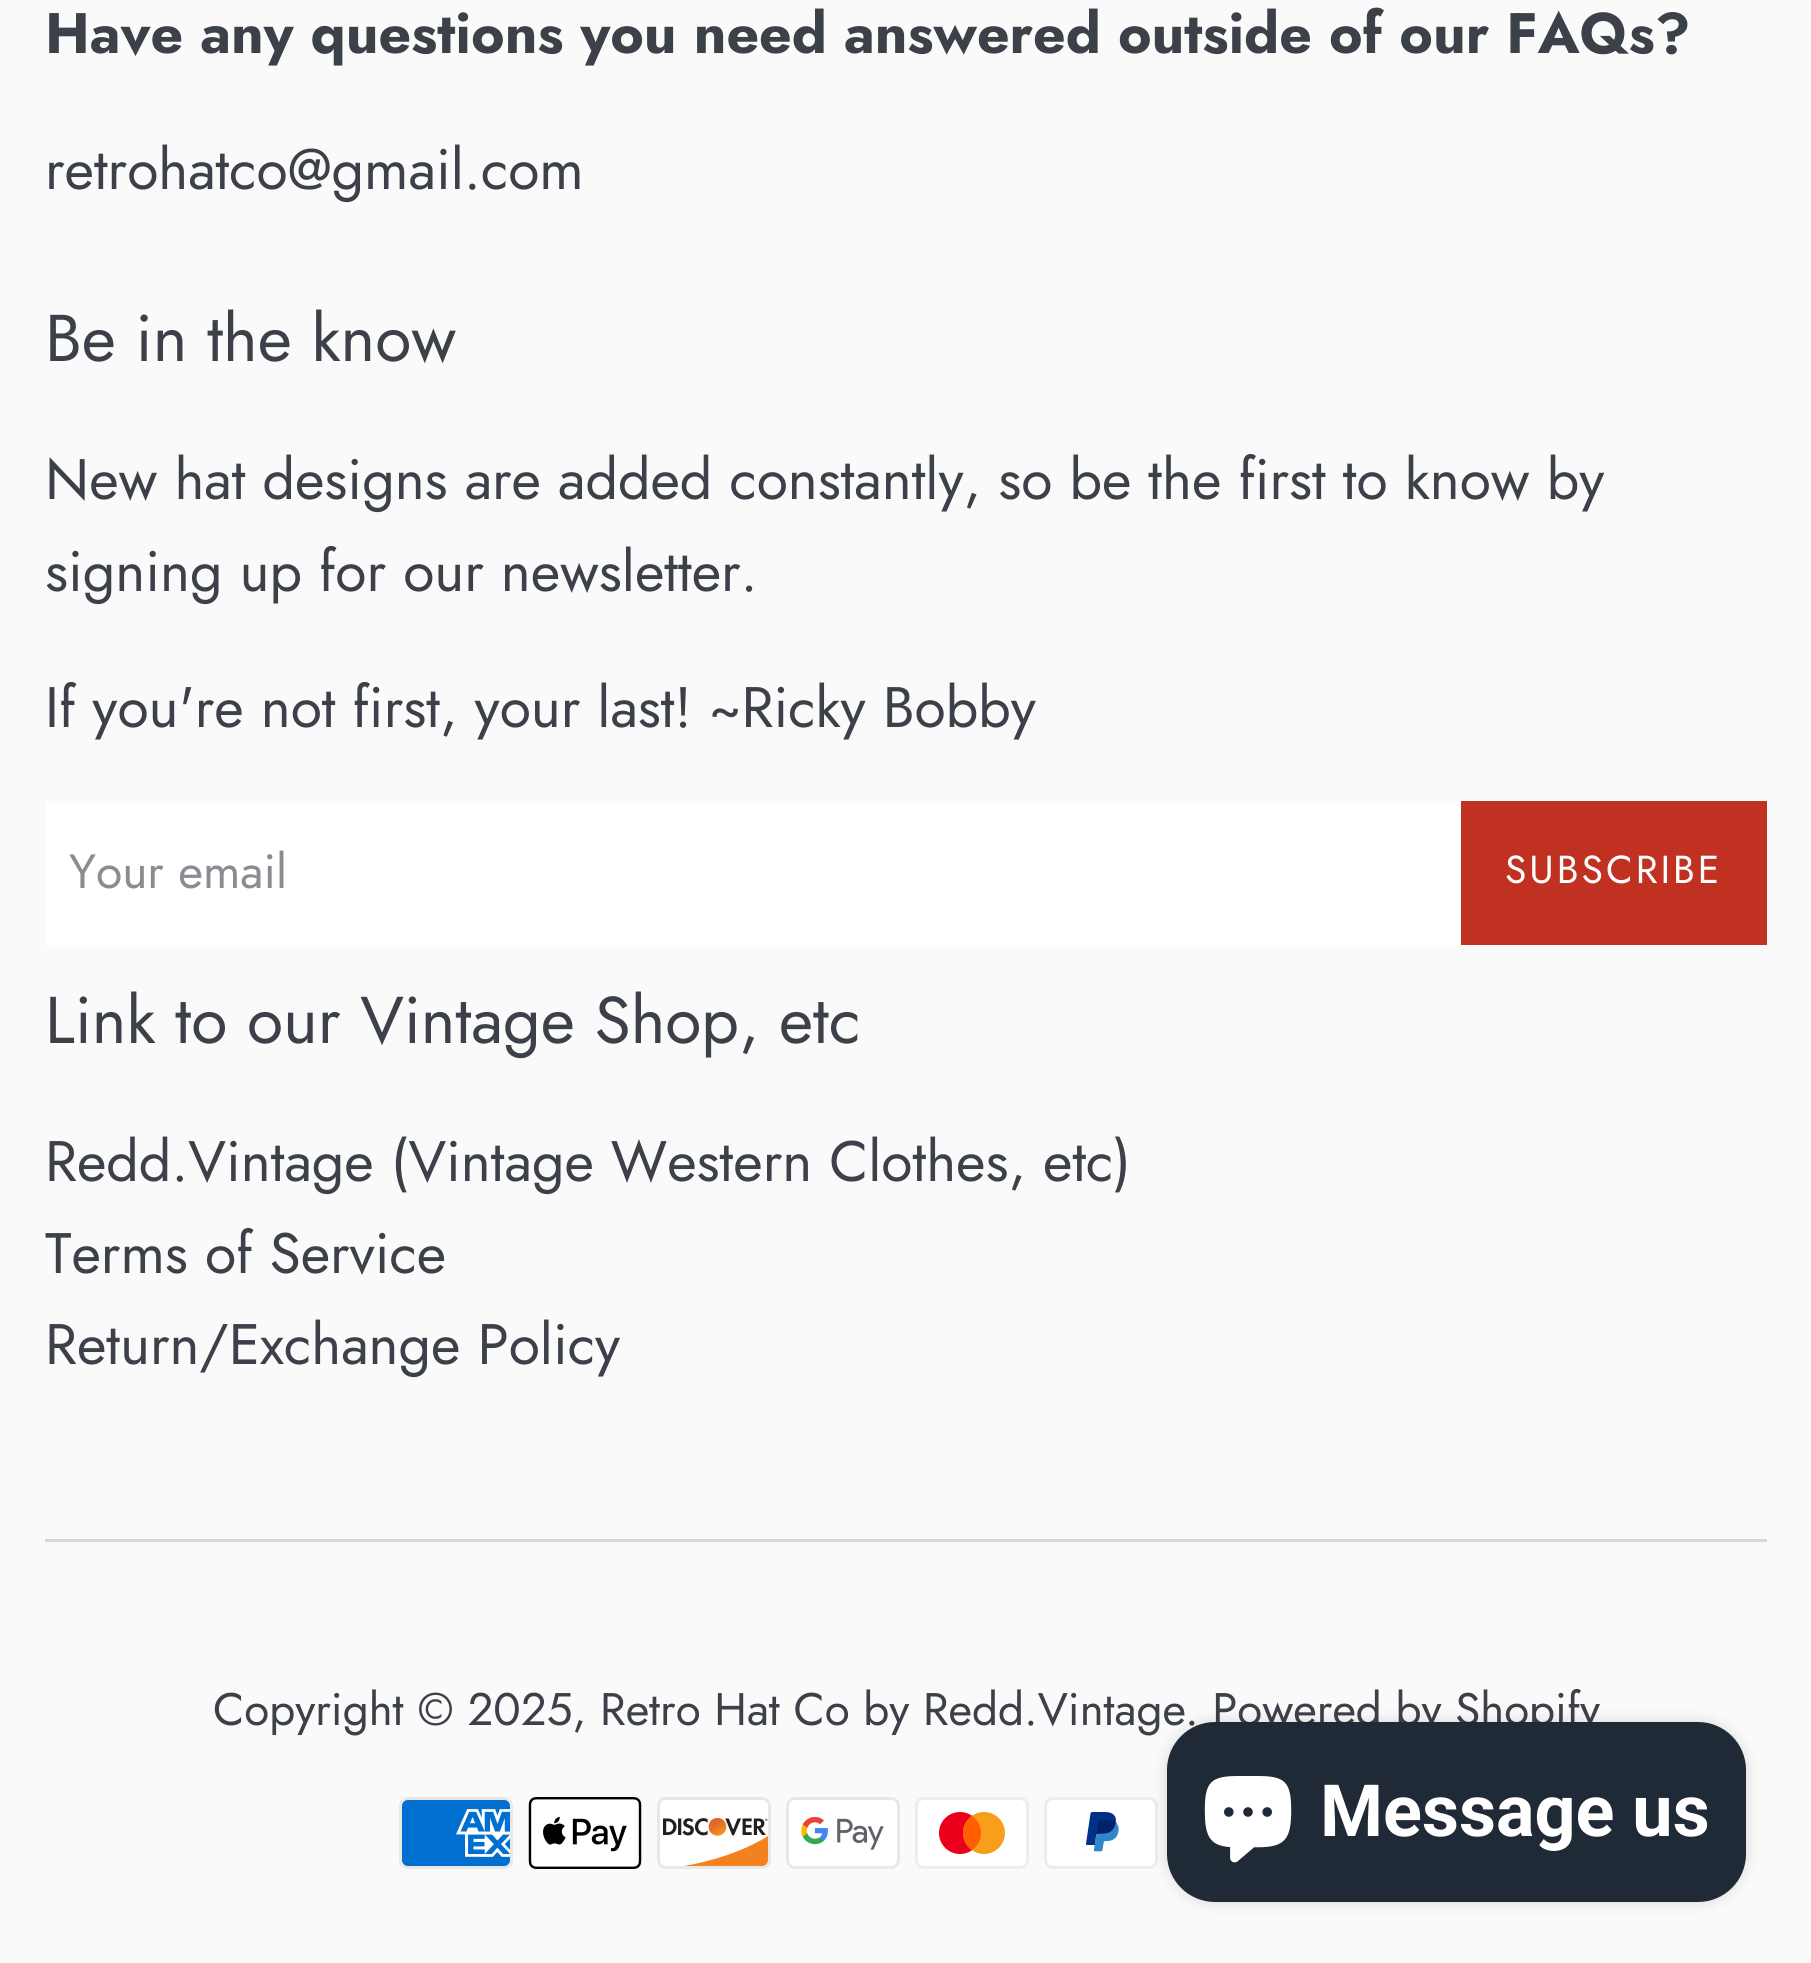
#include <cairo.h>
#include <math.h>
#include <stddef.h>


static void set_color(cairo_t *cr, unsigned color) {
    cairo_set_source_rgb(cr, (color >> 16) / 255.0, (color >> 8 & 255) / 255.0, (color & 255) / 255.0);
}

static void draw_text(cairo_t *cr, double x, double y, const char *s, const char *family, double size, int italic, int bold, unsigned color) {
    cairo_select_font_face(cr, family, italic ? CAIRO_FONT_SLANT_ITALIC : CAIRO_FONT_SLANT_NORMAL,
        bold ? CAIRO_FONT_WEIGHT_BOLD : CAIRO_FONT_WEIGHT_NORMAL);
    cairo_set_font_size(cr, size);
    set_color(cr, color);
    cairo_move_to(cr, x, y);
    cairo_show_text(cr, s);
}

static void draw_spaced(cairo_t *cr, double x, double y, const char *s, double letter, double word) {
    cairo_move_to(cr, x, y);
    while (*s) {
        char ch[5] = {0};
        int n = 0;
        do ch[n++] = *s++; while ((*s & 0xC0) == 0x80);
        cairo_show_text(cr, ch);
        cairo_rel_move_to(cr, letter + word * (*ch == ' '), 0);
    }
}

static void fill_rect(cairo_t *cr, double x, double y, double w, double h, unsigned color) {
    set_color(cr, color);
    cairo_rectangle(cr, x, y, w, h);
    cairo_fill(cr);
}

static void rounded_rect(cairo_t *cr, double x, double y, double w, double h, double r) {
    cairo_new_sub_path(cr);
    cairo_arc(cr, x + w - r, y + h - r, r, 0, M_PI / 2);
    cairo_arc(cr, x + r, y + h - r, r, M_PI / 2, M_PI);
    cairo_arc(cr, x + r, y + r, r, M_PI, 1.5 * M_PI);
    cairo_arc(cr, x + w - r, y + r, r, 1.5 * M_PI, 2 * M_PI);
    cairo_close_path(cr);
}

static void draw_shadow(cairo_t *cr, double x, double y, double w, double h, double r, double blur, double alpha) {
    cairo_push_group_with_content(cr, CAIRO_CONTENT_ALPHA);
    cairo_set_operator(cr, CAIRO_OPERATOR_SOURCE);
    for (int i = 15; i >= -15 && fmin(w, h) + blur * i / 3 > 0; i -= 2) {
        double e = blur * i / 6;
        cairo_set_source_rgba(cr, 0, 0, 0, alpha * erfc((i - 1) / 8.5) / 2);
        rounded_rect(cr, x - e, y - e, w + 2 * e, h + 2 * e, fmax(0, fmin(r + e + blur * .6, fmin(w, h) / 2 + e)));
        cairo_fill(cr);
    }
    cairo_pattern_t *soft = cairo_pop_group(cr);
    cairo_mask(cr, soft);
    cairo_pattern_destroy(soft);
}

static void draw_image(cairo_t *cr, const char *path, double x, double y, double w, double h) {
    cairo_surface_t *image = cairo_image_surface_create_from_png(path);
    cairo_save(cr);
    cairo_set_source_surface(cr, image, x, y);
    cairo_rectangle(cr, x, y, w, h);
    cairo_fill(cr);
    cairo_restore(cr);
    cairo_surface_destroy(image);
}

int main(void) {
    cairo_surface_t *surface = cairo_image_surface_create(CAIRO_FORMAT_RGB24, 1811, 1963);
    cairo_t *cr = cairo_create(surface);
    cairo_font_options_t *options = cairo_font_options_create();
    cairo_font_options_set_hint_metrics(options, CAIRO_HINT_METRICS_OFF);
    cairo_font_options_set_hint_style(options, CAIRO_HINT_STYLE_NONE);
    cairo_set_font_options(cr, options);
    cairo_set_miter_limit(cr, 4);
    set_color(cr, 0xFAFAFA);
    cairo_paint(cr);
    draw_text(cr, 45, 53, "Have any questions you need answered outside of our FAQs?", "Jost", 57, 0, 1, 0x3C4049);
    draw_text(cr, 45, 189, "retrohatco@gmail.com", "Jost", 57, 0, 0, 0x3C4049);
    draw_text(cr, 45, 361, "Be in the know", "Jost", 66, 0, 0, 0x3C4049);
    draw_text(cr, 45, 499, "New hat designs are added constantly, so be the first to know by", "Jost", 57, 0, 0, 0x3C4049);
    draw_text(cr, 45, 591, "signing up for our newsletter.", "Jost", 57, 0, 0, 0x3C4049);
    draw_text(cr, 45, 727, "If you're not first, your last! ~Ricky Bobby", "Jost", 57, 0, 0, 0x3C4049);
    fill_rect(cr, 45, 801, 1416, 144, 0xFFFFFF);
    draw_text(cr, 69, 888, "Your email", "Jost", 48, 0, 0, 0x8A8C92);
    fill_rect(cr, 1461, 801, 306, 144, 0xC13121);
    cairo_set_font_size(cr, 39);
    set_color(cr, 0xFFFFFF);
    draw_spaced(cr, 1505, 883, "SUBSCRIBE", 3, 0);
    draw_text(cr, 45, 1043, "Link to our Vintage Shop, etc", "Jost", 66, 0, 0, 0x3C4049);
    draw_text(cr, 45, 1181, "Redd.Vintage (Vintage Western Clothes, etc)", "Jost", 57, 0, 0, 0x3C4049);
    draw_text(cr, 45, 1273, "Terms of Service", "Jost", 57, 0, 0, 0x3C4049);
    draw_text(cr, 45, 1364, "Return/Exchange Policy", "Jost", 57, 0, 0, 0x3C4049);
    fill_rect(cr, 45, 1539, 1722, 3, 0xD7D8D2);
    draw_text(cr, 213, 1725, "Copyright © 2025, Retro Hat Co by Redd.Vintage", "Jost", 45.6, 0, 0, 0x3C4049);
    draw_text(cr, 1185, 1725, ". Powered by Shopify", "Jost", 45.6, 0, 0, 0x3C4049);
    draw_image(cr, "assets/img1.png", 399, 1797, 114, 72);
    draw_image(cr, "assets/img2.png", 528, 1797, 114, 72);
    draw_image(cr, "assets/img3.png", 657, 1797, 114, 72);
    draw_image(cr, "assets/img4.png", 786, 1797, 114, 72);
    draw_image(cr, "assets/img5.png", 915, 1797, 114, 72);
    draw_image(cr, "assets/img6.png", 1044, 1797, 114, 72);
    set_color(cr, 0x000000);
    draw_shadow(cr, 1167, 1722, 579, 180, 48, 7.5, 0.15);
    set_color(cr, 0x202A36);
    rounded_rect(cr, 1167, 1722, 579, 180, 48);
    cairo_fill(cr);
    draw_image(cr, "assets/img7.png", 1204, 1776, 88, 87);
    draw_text(cr, 1320, 1836, "Message us", "Roboto", 72, 0, 1, 0xFFFFFF);
    cairo_surface_write_to_png(surface, "output.png");
    cairo_font_options_destroy(options);
    cairo_destroy(cr);
    cairo_surface_destroy(surface);
    return 0;
}
